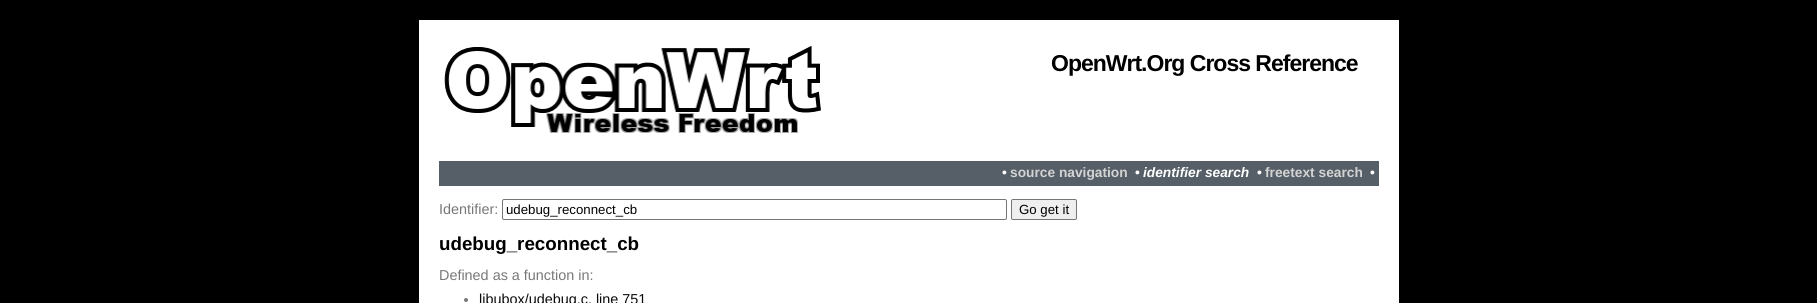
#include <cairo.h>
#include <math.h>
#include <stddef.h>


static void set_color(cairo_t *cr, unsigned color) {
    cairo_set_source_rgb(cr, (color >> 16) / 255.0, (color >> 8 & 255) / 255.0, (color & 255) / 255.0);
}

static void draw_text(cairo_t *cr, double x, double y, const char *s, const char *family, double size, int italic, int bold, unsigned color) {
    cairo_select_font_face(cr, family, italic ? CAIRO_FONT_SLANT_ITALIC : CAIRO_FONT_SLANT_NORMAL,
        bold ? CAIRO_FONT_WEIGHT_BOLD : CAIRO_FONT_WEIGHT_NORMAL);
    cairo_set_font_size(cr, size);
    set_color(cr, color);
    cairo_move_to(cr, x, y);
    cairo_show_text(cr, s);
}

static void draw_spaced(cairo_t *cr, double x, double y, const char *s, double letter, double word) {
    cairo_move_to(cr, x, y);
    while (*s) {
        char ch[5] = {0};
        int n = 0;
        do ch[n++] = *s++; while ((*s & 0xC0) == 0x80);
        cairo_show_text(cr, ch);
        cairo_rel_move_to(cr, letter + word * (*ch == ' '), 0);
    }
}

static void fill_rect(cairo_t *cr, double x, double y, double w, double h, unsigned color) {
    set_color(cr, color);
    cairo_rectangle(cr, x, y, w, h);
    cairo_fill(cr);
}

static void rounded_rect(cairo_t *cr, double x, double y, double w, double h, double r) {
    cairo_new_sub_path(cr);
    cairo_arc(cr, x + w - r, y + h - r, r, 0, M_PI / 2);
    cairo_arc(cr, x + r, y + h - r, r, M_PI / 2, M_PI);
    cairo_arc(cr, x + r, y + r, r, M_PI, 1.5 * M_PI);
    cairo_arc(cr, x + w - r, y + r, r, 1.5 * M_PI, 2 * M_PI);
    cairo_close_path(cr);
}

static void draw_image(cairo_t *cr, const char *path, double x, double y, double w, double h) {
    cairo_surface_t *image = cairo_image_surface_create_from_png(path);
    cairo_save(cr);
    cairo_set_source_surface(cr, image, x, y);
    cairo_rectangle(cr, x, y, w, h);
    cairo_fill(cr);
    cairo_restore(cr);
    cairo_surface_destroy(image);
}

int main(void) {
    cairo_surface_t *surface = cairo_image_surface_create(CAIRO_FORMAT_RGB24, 1817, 303);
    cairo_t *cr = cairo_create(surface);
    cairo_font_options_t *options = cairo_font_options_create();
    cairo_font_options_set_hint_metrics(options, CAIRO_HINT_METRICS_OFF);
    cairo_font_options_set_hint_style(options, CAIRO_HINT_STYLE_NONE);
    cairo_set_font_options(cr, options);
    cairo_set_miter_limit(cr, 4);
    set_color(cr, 0x000000);
    cairo_paint(cr);
    fill_rect(cr, 419, 20, 980, 283, 0xFFFFFF);
    draw_image(cr, "assets/img1.png", 444, 45, 377, 88);
    cairo_select_font_face(cr, "Liberation Sans", CAIRO_FONT_SLANT_NORMAL, CAIRO_FONT_WEIGHT_BOLD);
    cairo_set_font_size(cr, 23);
    set_color(cr, 0x000000);
    draw_spaced(cr, 1051, 71, "OpenWrt.Org Cross Reference", -1, 0);
    fill_rect(cr, 439, 161, 940, 25, 0x565F68);
    draw_text(cr, 1002, 177, "•", "Liberation Sans", 13.75, 0, 1, 0xFFFFFF);
    draw_text(cr, 1010, 177, "source navigation", "Liberation Sans", 13.75, 0, 1, 0xD3D3D3);
    draw_text(cr, 1135, 177, "•", "Liberation Sans", 13.75, 0, 1, 0xFFFFFF);
    draw_text(cr, 1143, 177, "identifier search", "Liberation Sans", 13.75, 1, 1, 0xFFFFFF);
    draw_text(cr, 1257, 177, "•", "Liberation Sans", 13.75, 0, 1, 0xFFFFFF);
    draw_text(cr, 1265, 177, "freetext search", "Liberation Sans", 13.75, 0, 1, 0xD3D3D3);
    draw_text(cr, 1370, 177, "•", "Liberation Sans", 13.75, 0, 1, 0xFFFFFF);
    draw_text(cr, 439, 214, "Identifier:", "Liberation Sans", 14.4, 0, 0, 0x787878);
    rounded_rect(cr, 502.5, 199.5, 504, 20, 1.5);
    set_color(cr, 0x767676);
    cairo_set_line_width(cr, 1);
    cairo_stroke(cr);
    draw_text(cr, 506, 214, "udebug_reconnect_cb", "Liberation Sans", 13.25, 0, 0, 0x000000);
    set_color(cr, 0xEFEFEF);
    rounded_rect(cr, 1011.5, 199.5, 65, 20, 1.5);
    cairo_fill_preserve(cr);
    set_color(cr, 0x767676);
    cairo_stroke(cr);
    draw_text(cr, 1019, 214, "Go get it", "Liberation Sans", 13.25, 0, 0, 0x000000);
    draw_text(cr, 439, 250, "udebug_reconnect_cb", "Liberation Sans", 18.75, 0, 1, 0x000000);
    draw_text(cr, 439, 280, "Defined as a function in:", "Liberation Sans", 14.4, 0, 0, 0x787878);
    cairo_new_path(cr);
    cairo_arc(cr, 466, 300, 2, 0, 2 * M_PI);
    cairo_fill(cr);
    draw_text(cr, 479, 304, "libubox/udebug.c, line 751", "Liberation Sans", 14.4, 0, 0, 0x0A0A0A);
    cairo_surface_write_to_png(surface, "output.png");
    cairo_font_options_destroy(options);
    cairo_destroy(cr);
    cairo_surface_destroy(surface);
    return 0;
}
